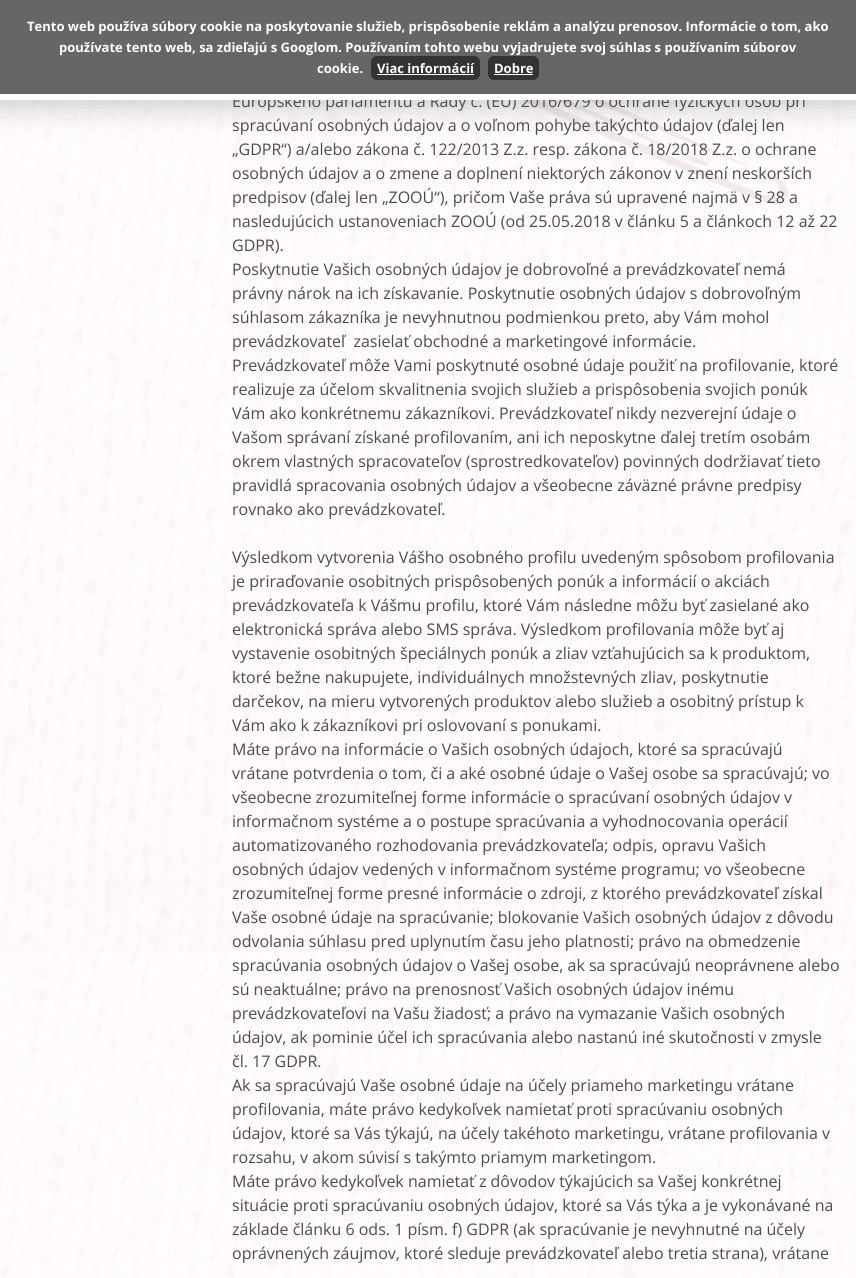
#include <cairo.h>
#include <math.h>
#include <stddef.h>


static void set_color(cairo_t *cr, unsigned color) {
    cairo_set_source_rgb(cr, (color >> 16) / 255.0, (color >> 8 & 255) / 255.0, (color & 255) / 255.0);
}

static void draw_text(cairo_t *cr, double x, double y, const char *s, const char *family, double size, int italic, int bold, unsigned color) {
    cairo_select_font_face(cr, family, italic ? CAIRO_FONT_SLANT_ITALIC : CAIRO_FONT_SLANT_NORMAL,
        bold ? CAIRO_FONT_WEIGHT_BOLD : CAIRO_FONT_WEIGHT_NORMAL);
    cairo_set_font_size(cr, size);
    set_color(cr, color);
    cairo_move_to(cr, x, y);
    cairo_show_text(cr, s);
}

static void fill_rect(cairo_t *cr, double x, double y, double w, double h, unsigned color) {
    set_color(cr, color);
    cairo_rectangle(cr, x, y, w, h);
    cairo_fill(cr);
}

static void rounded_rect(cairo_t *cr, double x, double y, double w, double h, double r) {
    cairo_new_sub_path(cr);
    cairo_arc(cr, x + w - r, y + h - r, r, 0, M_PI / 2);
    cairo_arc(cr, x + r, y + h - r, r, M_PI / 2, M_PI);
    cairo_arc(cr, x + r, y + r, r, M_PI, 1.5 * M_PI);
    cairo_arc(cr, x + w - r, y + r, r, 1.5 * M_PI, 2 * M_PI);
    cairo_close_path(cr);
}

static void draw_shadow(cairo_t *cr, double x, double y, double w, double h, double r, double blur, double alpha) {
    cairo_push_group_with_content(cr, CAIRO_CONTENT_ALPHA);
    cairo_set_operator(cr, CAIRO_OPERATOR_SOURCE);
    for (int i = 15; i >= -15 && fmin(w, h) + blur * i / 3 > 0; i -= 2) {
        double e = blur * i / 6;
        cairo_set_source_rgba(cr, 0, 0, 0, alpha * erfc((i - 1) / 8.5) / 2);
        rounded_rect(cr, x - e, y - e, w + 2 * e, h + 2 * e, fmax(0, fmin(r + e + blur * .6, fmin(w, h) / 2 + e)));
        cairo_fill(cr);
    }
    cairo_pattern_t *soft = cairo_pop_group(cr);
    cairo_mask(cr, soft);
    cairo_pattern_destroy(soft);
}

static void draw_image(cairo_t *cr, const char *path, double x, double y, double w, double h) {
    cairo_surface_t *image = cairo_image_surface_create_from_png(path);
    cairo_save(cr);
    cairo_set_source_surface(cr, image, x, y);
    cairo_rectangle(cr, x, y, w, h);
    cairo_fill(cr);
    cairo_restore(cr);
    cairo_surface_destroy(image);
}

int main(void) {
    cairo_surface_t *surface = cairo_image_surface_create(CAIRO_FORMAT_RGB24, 856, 1278);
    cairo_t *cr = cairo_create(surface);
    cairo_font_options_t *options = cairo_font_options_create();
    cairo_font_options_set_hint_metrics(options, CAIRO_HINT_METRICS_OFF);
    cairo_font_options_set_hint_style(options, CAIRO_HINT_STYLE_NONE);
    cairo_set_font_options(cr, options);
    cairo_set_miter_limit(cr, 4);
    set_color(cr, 0xFFFFFF);
    cairo_paint(cr);
    draw_image(cr, "assets/img1.png", 0, 100, 856, 1178);
    draw_image(cr, "assets/img2.png", 522, 100, 267, 105);
    set_color(cr, 0x000000);
    draw_shadow(cr, -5, -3, 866, 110, 0, 15, 0.2);
    draw_text(cr, 232, 107, "Európskeho parlamentu a Rady č. (EÚ) 2016/679 o ochrane fyzických osôb pri", "Open Sans", 16, 0, 0, 0x4C4C4C);
    fill_rect(cr, 0, 0, 856, 94, 0x666666);
    draw_text(cr, 27, 31, "Tento web používa súbory cookie na poskytovanie služieb, prispôsobenie reklám a analýzu prenosov. Informácie o tom, ako", "Open Sans", 13, 0, 1, 0xFFFFFF);
    draw_text(cr, 59, 52, "používate tento web, sa zdieľajú s Googlom. Používaním tohto webu vyjadrujete svoj súhlas s používaním súborov", "Open Sans", 13, 0, 1, 0xFFFFFF);
    draw_text(cr, 317, 73, "cookie.", "Open Sans", 13, 0, 1, 0xFFFFFF);
    set_color(cr, 0x333333);
    rounded_rect(cr, 371, 56, 109, 24, 6);
    cairo_fill(cr);
    draw_text(cr, 377, 73, "Viac informácií", "Open Sans", 13, 0, 1, 0xFFFFFF);
    fill_rect(cr, 377, 74, 97, 1, 0xFFFFFF);
    set_color(cr, 0x333333);
    rounded_rect(cr, 488, 56, 51, 24, 6);
    cairo_fill(cr);
    draw_text(cr, 494, 73, "Dobre", "Open Sans", 13, 0, 1, 0xFFFFFF);
    fill_rect(cr, 494, 74, 39, 1, 0xFFFFFF);
    fill_rect(cr, 0, 94, 856, 6, 0xFFFFFF);
    draw_text(cr, 232, 131, "spracúvaní osobných údajov a o voľnom pohybe takýchto údajov (ďalej len", "Open Sans", 16, 0, 0, 0x4C4C4C);
    draw_text(cr, 232, 155, "„GDPR“) a/alebo zákona č. 122/2013 Z.z. resp. zákona č. 18/2018 Z.z. o ochrane", "Open Sans", 16, 0, 0, 0x4C4C4C);
    draw_text(cr, 232, 179, "osobných údajov a o zmene a doplnení niektorých zákonov v znení neskorších", "Open Sans", 16, 0, 0, 0x4C4C4C);
    draw_text(cr, 232, 203, "predpisov (ďalej len „ZOOÚ“), pričom Vaše práva sú upravené najmä v § 28 a", "Open Sans", 16, 0, 0, 0x4C4C4C);
    draw_text(cr, 232, 227, "nasledujúcich ustanoveniach ZOOÚ (od 25.05.2018 v článku 5 a článkoch 12 až 22", "Open Sans", 16, 0, 0, 0x4C4C4C);
    draw_text(cr, 232, 251, "GDPR).", "Open Sans", 16, 0, 0, 0x4C4C4C);
    draw_text(cr, 232, 275, "Poskytnutie Vašich osobných údajov je dobrovoľné a prevádzkovateľ nemá", "Open Sans", 16, 0, 0, 0x4C4C4C);
    draw_text(cr, 232, 299, "právny nárok na ich získavanie. Poskytnutie osobných údajov s dobrovoľným", "Open Sans", 16, 0, 0, 0x4C4C4C);
    draw_text(cr, 232, 323, "súhlasom zákazníka je nevyhnutnou podmienkou preto, aby Vám mohol", "Open Sans", 16, 0, 0, 0x4C4C4C);
    draw_text(cr, 232, 347, "prevádzkovateľ  zasielať obchodné a marketingové informácie.", "Open Sans", 16, 0, 0, 0x4C4C4C);
    draw_text(cr, 232, 371, "Prevádzkovateľ môže Vami poskytnuté osobné údaje použiť na profilovanie, ktoré", "Open Sans", 16, 0, 0, 0x4C4C4C);
    draw_text(cr, 232, 395, "realizuje za účelom skvalitnenia svojich služieb a prispôsobenia svojich ponúk", "Open Sans", 16, 0, 0, 0x4C4C4C);
    draw_text(cr, 232, 419, "Vám ako konkrétnemu zákazníkovi. Prevádzkovateľ nikdy nezverejní údaje o", "Open Sans", 16, 0, 0, 0x4C4C4C);
    draw_text(cr, 232, 443, "Vašom správaní získané profilovaním, ani ich neposkytne ďalej tretím osobám", "Open Sans", 16, 0, 0, 0x4C4C4C);
    draw_text(cr, 232, 467, "okrem vlastných spracovateľov (sprostredkovateľov) povinných dodržiavať tieto", "Open Sans", 16, 0, 0, 0x4C4C4C);
    draw_text(cr, 232, 491, "pravidlá spracovania osobných údajov a všeobecne záväzné právne predpisy", "Open Sans", 16, 0, 0, 0x4C4C4C);
    draw_text(cr, 232, 515, "rovnako ako prevádzkovateľ.", "Open Sans", 16, 0, 0, 0x4C4C4C);
    draw_text(cr, 232, 563, "Výsledkom vytvorenia Vášho osobného profilu uvedeným spôsobom profilovania", "Open Sans", 16, 0, 0, 0x4C4C4C);
    draw_text(cr, 232, 587, "je priraďovanie osobitných prispôsobených ponúk a informácií o akciách", "Open Sans", 16, 0, 0, 0x4C4C4C);
    draw_text(cr, 232, 611, "prevádzkovateľa k Vášmu profilu, ktoré Vám následne môžu byť zasielané ako", "Open Sans", 16, 0, 0, 0x4C4C4C);
    draw_text(cr, 232, 635, "elektronická správa alebo SMS správa. Výsledkom profilovania môže byť aj", "Open Sans", 16, 0, 0, 0x4C4C4C);
    draw_text(cr, 232, 659, "vystavenie osobitných špeciálnych ponúk a zliav vzťahujúcich sa k produktom,", "Open Sans", 16, 0, 0, 0x4C4C4C);
    draw_text(cr, 232, 683, "ktoré bežne nakupujete, individuálnych množstevných zliav, poskytnutie", "Open Sans", 16, 0, 0, 0x4C4C4C);
    draw_text(cr, 232, 707, "darčekov, na mieru vytvorených produktov alebo služieb a osobitný prístup k", "Open Sans", 16, 0, 0, 0x4C4C4C);
    draw_text(cr, 232, 731, "Vám ako k zákazníkovi pri oslovovaní s ponukami.", "Open Sans", 16, 0, 0, 0x4C4C4C);
    draw_text(cr, 232, 755, "Máte právo na informácie o Vašich osobných údajoch, ktoré sa spracúvajú", "Open Sans", 16, 0, 0, 0x4C4C4C);
    draw_text(cr, 232, 779, "vrátane potvrdenia o tom, či a aké osobné údaje o Vašej osobe sa spracúvajú; vo", "Open Sans", 16, 0, 0, 0x4C4C4C);
    draw_text(cr, 232, 803, "všeobecne zrozumiteľnej forme informácie o spracúvaní osobných údajov v", "Open Sans", 16, 0, 0, 0x4C4C4C);
    draw_text(cr, 232, 827, "informačnom systéme a o postupe spracúvania a vyhodnocovania operácií", "Open Sans", 16, 0, 0, 0x4C4C4C);
    draw_text(cr, 232, 851, "automatizovaného rozhodovania prevádzkovateľa; odpis, opravu Vašich", "Open Sans", 16, 0, 0, 0x4C4C4C);
    draw_text(cr, 232, 875, "osobných údajov vedených v informačnom systéme programu; vo všeobecne", "Open Sans", 16, 0, 0, 0x4C4C4C);
    draw_text(cr, 232, 899, "zrozumiteľnej forme presné informácie o zdroji, z ktorého prevádzkovateľ získal", "Open Sans", 16, 0, 0, 0x4C4C4C);
    draw_text(cr, 232, 923, "Vaše osobné údaje na spracúvanie; blokovanie Vašich osobných údajov z dôvodu", "Open Sans", 16, 0, 0, 0x4C4C4C);
    draw_text(cr, 232, 947, "odvolania súhlasu pred uplynutím času jeho platnosti; právo na obmedzenie", "Open Sans", 16, 0, 0, 0x4C4C4C);
    draw_text(cr, 232, 971, "spracúvania osobných údajov o Vašej osobe, ak sa spracúvajú neoprávnene alebo", "Open Sans", 16, 0, 0, 0x4C4C4C);
    draw_text(cr, 232, 995, "sú neaktuálne; právo na prenosnosť Vašich osobných údajov inému", "Open Sans", 16, 0, 0, 0x4C4C4C);
    draw_text(cr, 232, 1019, "prevádzkovateľovi na Vašu žiadosť; a právo na vymazanie Vašich osobných", "Open Sans", 16, 0, 0, 0x4C4C4C);
    draw_text(cr, 232, 1043, "údajov, ak pominie účel ich spracúvania alebo nastanú iné skutočnosti v zmysle", "Open Sans", 16, 0, 0, 0x4C4C4C);
    draw_text(cr, 232, 1067, "čl. 17 GDPR.", "Open Sans", 16, 0, 0, 0x4C4C4C);
    draw_text(cr, 232, 1091, "Ak sa spracúvajú Vaše osobné údaje na účely priameho marketingu vrátane", "Open Sans", 16, 0, 0, 0x4C4C4C);
    draw_text(cr, 232, 1115, "profilovania, máte právo kedykoľvek namietať proti spracúvaniu osobných", "Open Sans", 16, 0, 0, 0x4C4C4C);
    draw_text(cr, 232, 1139, "údajov, ktoré sa Vás týkajú, na účely takéhoto marketingu, vrátane profilovania v", "Open Sans", 16, 0, 0, 0x4C4C4C);
    draw_text(cr, 232, 1163, "rozsahu, v akom súvisí s takýmto priamym marketingom.", "Open Sans", 16, 0, 0, 0x4C4C4C);
    draw_text(cr, 232, 1187, "Máte právo kedykoľvek namietať z dôvodov týkajúcich sa Vašej konkrétnej", "Open Sans", 16, 0, 0, 0x4C4C4C);
    draw_text(cr, 232, 1211, "situácie proti spracúvaniu osobných údajov, ktoré sa Vás týka a je vykonávané na", "Open Sans", 16, 0, 0, 0x4C4C4C);
    draw_text(cr, 232, 1235, "základe článku 6 ods. 1 písm. f) GDPR (ak spracúvanie je nevyhnutné na účely", "Open Sans", 16, 0, 0, 0x4C4C4C);
    draw_text(cr, 232, 1259, "oprávnených záujmov, ktoré sleduje prevádzkovateľ alebo tretia strana), vrátane", "Open Sans", 16, 0, 0, 0x4C4C4C);
    cairo_surface_write_to_png(surface, "output.png");
    cairo_font_options_destroy(options);
    cairo_destroy(cr);
    cairo_surface_destroy(surface);
    return 0;
}
